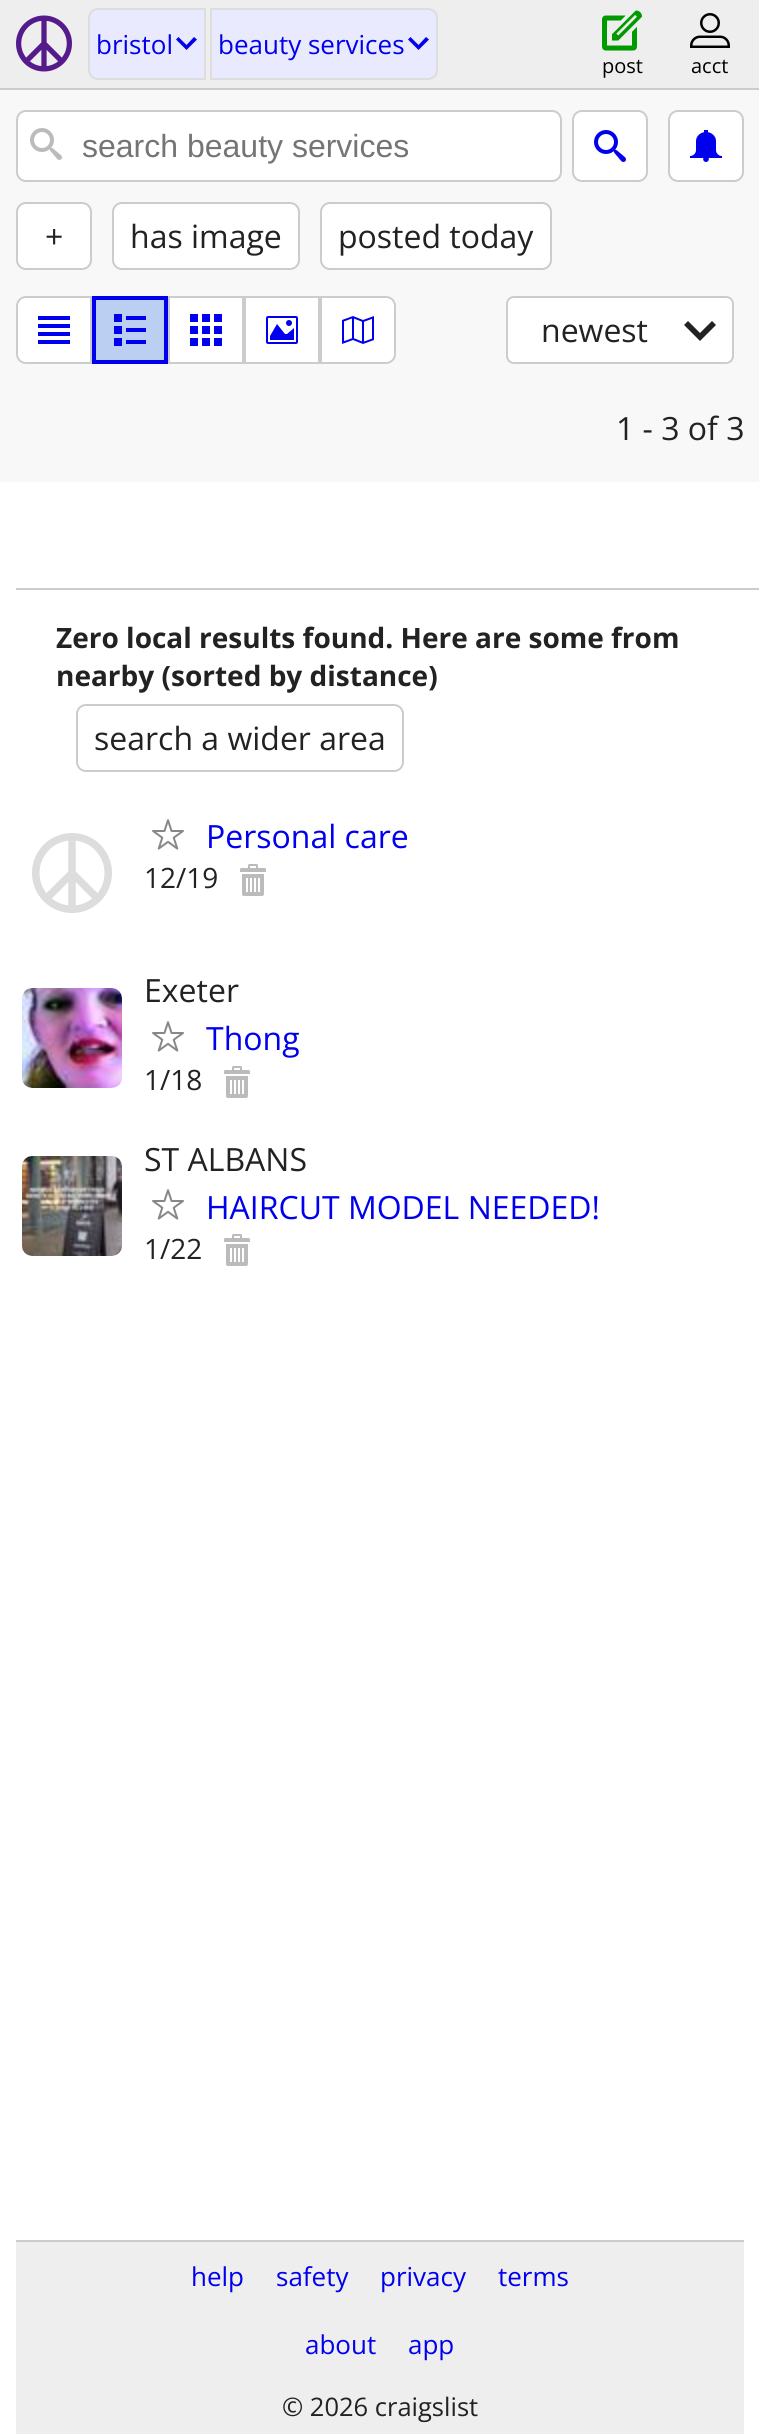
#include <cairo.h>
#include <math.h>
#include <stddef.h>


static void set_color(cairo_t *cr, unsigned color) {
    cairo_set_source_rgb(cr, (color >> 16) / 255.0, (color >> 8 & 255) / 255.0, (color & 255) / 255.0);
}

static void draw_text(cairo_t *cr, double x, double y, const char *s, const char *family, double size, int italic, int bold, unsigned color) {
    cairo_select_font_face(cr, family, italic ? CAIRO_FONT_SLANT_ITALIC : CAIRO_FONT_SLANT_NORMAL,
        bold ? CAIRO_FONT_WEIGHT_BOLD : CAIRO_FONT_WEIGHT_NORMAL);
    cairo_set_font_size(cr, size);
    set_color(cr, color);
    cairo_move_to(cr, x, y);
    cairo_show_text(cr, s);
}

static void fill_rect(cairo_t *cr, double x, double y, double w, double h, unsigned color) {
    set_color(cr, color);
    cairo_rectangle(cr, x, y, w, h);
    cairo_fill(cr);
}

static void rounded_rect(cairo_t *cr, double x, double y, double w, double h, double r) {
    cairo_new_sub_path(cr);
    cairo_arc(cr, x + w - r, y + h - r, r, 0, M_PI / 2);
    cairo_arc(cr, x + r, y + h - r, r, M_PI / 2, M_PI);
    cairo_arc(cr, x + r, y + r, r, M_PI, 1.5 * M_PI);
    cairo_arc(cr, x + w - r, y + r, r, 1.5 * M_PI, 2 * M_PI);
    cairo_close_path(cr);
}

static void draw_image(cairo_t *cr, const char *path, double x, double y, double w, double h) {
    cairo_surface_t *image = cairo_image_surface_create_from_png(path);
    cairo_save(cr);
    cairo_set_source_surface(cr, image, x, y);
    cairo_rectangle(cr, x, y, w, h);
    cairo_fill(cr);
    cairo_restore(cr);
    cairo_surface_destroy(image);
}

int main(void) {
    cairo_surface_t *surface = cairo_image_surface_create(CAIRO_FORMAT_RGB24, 759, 2434);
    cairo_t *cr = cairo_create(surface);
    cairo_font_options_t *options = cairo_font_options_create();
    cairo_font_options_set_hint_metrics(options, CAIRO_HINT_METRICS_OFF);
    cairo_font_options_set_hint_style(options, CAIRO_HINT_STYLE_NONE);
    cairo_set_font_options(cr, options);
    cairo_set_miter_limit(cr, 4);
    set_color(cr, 0xFFFFFF);
    cairo_paint(cr);
    fill_rect(cr, 0, 0, 759, 88, 0xEEEEEE);
    fill_rect(cr, 0, 88, 759, 2, 0xCCCCCC);
    draw_image(cr, "assets/img1.png", 16, 15, 56, 57);
    set_color(cr, 0xEAEAFF);
    cairo_new_path(cr);
    cairo_move_to(cr, 98, 9);
    cairo_line_to(cr, 205, 9);
    cairo_line_to(cr, 205, 79);
    cairo_line_to(cr, 98, 79);
    cairo_curve_to(cr, 93, 79, 89, 75, 89, 70);
    cairo_line_to(cr, 89, 18);
    cairo_curve_to(cr, 89, 13, 93, 9, 98, 9);
    cairo_close_path(cr);
    cairo_fill_preserve(cr);
    set_color(cr, 0xDDDDDD);
    cairo_stroke(cr);
    draw_text(cr, 96, 54, "bristol", "Open Sans", 26, 0, 0, 0x0000EE);
    cairo_new_path(cr);
    cairo_move_to(cr, 197, 39.5);
    cairo_line_to(cr, 194, 37);
    cairo_line_to(cr, 186.5, 45);
    cairo_line_to(cr, 178.5, 37);
    cairo_line_to(cr, 176, 39.5);
    cairo_line_to(cr, 186.5, 50);
    cairo_close_path(cr);
    cairo_fill(cr);
    set_color(cr, 0xEAEAFF);
    cairo_new_path(cr);
    cairo_move_to(cr, 211, 9);
    cairo_line_to(cr, 428, 9);
    cairo_curve_to(cr, 433, 9, 437, 13, 437, 18);
    cairo_line_to(cr, 437, 70);
    cairo_curve_to(cr, 437, 75, 433, 79, 428, 79);
    cairo_line_to(cr, 211, 79);
    cairo_close_path(cr);
    cairo_fill_preserve(cr);
    set_color(cr, 0xDDDDDD);
    cairo_stroke(cr);
    draw_text(cr, 218, 54, "beauty services", "Open Sans", 26, 0, 0, 0x0000EE);
    cairo_new_path(cr);
    cairo_move_to(cr, 429, 39.5);
    cairo_line_to(cr, 426, 37);
    cairo_line_to(cr, 418.5, 45);
    cairo_line_to(cr, 410.5, 37);
    cairo_line_to(cr, 408, 39.5);
    cairo_line_to(cr, 418.5, 50);
    cairo_close_path(cr);
    cairo_fill(cr);
    draw_image(cr, "assets/img2.png", 602, 10, 40, 41);
    draw_text(cr, 602, 73, "post", "Open Sans", 20, 0, 0, 0x000000);
    draw_image(cr, "assets/img3.png", 690, 13, 40, 35);
    draw_text(cr, 691, 73, "acct", "Open Sans", 20, 0, 0, 0x000000);
    fill_rect(cr, 0, 90, 759, 392, 0xF8F8F8);
    set_color(cr, 0xFFFFFF);
    rounded_rect(cr, 17, 111, 544, 70, 9);
    cairo_fill_preserve(cr);
    set_color(cr, 0xCCCCCC);
    cairo_stroke(cr);
    draw_image(cr, "assets/img4.png", 30, 128, 32, 32);
    draw_text(cr, 82, 157, "search beauty services", "Liberation Sans", 32, 0, 0, 0x757575);
    set_color(cr, 0xFFFFFF);
    rounded_rect(cr, 573, 111, 74, 70, 9);
    cairo_fill_preserve(cr);
    set_color(cr, 0xCCCCCC);
    cairo_stroke(cr);
    draw_image(cr, "assets/img5.png", 594, 130, 32, 32);
    set_color(cr, 0xFFFFFF);
    rounded_rect(cr, 669, 111, 74, 70, 9);
    cairo_fill_preserve(cr);
    set_color(cr, 0xCCCCCC);
    cairo_stroke(cr);
    draw_image(cr, "assets/img6.png", 690, 130, 32, 32);
    set_color(cr, 0xFFFFFF);
    rounded_rect(cr, 17, 203, 74, 66, 9);
    cairo_fill_preserve(cr);
    set_color(cr, 0xCCCCCC);
    cairo_stroke(cr);
    draw_text(cr, 45, 248, "+", "Open Sans", 32, 0, 0, 0x222222);
    set_color(cr, 0xFFFFFF);
    rounded_rect(cr, 113, 203, 186, 66, 9);
    cairo_fill_preserve(cr);
    set_color(cr, 0xCCCCCC);
    cairo_stroke(cr);
    draw_text(cr, 130, 248, "has image", "Open Sans", 32, 0, 0, 0x222222);
    set_color(cr, 0xFFFFFF);
    rounded_rect(cr, 321, 203, 230, 66, 9);
    cairo_fill_preserve(cr);
    set_color(cr, 0xCCCCCC);
    cairo_stroke(cr);
    draw_text(cr, 338, 248, "posted today", "Open Sans", 32, 0, 0, 0x222222);
    set_color(cr, 0xFFFFFF);
    cairo_new_path(cr);
    cairo_move_to(cr, 26, 297);
    cairo_line_to(cr, 91, 297);
    cairo_line_to(cr, 91, 363);
    cairo_line_to(cr, 26, 363);
    cairo_curve_to(cr, 21, 363, 17, 359, 17, 354);
    cairo_line_to(cr, 17, 306);
    cairo_curve_to(cr, 17, 301, 21, 297, 26, 297);
    cairo_close_path(cr);
    cairo_fill_preserve(cr);
    set_color(cr, 0xCCCCCC);
    cairo_stroke(cr);
    draw_image(cr, "assets/img7.png", 38, 316, 32, 28);
    set_color(cr, 0xBACFF2);
    cairo_rectangle(cr, 94, 298, 72, 64);
    cairo_fill_preserve(cr);
    set_color(cr, 0x0000EE);
    cairo_set_line_width(cr, 4);
    cairo_stroke(cr);
    draw_image(cr, "assets/img8.png", 114, 314, 32, 32);
    set_color(cr, 0xFFFFFF);
    cairo_rectangle(cr, 169, 297, 74, 66);
    cairo_fill_preserve(cr);
    set_color(cr, 0xCCCCCC);
    cairo_set_line_width(cr, 2);
    cairo_stroke(cr);
    draw_image(cr, "assets/img9.png", 190, 314, 32, 32);
    set_color(cr, 0xFFFFFF);
    cairo_rectangle(cr, 245, 297, 74, 66);
    cairo_fill_preserve(cr);
    set_color(cr, 0xCCCCCC);
    cairo_stroke(cr);
    draw_image(cr, "assets/img10.png", 266, 316, 32, 28);
    set_color(cr, 0xFFFFFF);
    cairo_new_path(cr);
    cairo_move_to(cr, 321, 297);
    cairo_line_to(cr, 386, 297);
    cairo_curve_to(cr, 391, 297, 395, 301, 395, 306);
    cairo_line_to(cr, 395, 354);
    cairo_curve_to(cr, 395, 359, 391, 363, 386, 363);
    cairo_line_to(cr, 321, 363);
    cairo_close_path(cr);
    cairo_fill_preserve(cr);
    set_color(cr, 0xCCCCCC);
    cairo_stroke(cr);
    draw_image(cr, "assets/img11.png", 342, 316, 32, 28);
    set_color(cr, 0xFFFFFF);
    rounded_rect(cr, 507, 297, 226, 66, 7);
    cairo_fill_preserve(cr);
    set_color(cr, 0xCCCCCC);
    cairo_stroke(cr);
    draw_text(cr, 541, 342, "newest", "Open Sans", 32, 0, 0, 0x222222);
    cairo_new_path(cr);
    cairo_move_to(cr, 716, 325);
    cairo_line_to(cr, 712, 321);
    cairo_line_to(cr, 700, 333);
    cairo_line_to(cr, 688, 321);
    cairo_line_to(cr, 684, 325);
    cairo_line_to(cr, 700, 341);
    cairo_close_path(cr);
    cairo_fill(cr);
    draw_text(cr, 616, 440, "1 - 3 of 3", "Open Sans", 32, 0, 0, 0x222222);
    fill_rect(cr, 16, 588, 743, 2, 0xCCCCCC);
    draw_text(cr, 56, 648, "Zero local results found. Here are some from", "Open Sans", 28, 0, 1, 0x222222);
    draw_text(cr, 56, 686, "nearby (sorted by distance)", "Open Sans", 28, 0, 1, 0x222222);
    rounded_rect(cr, 77, 705, 326, 66, 9);
    set_color(cr, 0xCCCCCC);
    cairo_stroke(cr);
    draw_text(cr, 94, 750, "search a wider area", "Open Sans", 32, 0, 0, 0x222222);
    draw_image(cr, "assets/img12.png", 32, 833, 80, 80);
    draw_image(cr, "assets/img13.png", 152, 819, 32, 31);
    draw_text(cr, 206, 848, "Personal care", "Open Sans", 32, 0, 0, 0x0000EE);
    draw_text(cr, 144, 888, "12/19", "Open Sans", 28, 0, 0, 0x222222);
    draw_image(cr, "assets/img14.png", 240, 864, 26, 32);
    draw_image(cr, "assets/img15.png", 22, 988, 100, 100);
    draw_text(cr, 144, 1002, "Exeter", "Open Sans", 32, 0, 0, 0x222222);
    draw_image(cr, "assets/img13.png", 152, 1021, 32, 31);
    draw_text(cr, 206, 1050, "Thong", "Open Sans", 32, 0, 0, 0x0000EE);
    draw_text(cr, 144, 1090, "1/18", "Open Sans", 28, 0, 0, 0x222222);
    draw_image(cr, "assets/img14.png", 224, 1066, 26, 32);
    draw_image(cr, "assets/img16.png", 22, 1156, 100, 100);
    draw_text(cr, 144, 1171, "ST ALBANS", "Open Sans", 32, 0, 0, 0x222222);
    draw_image(cr, "assets/img13.png", 152, 1189, 32, 31);
    draw_text(cr, 206, 1219, "HAIRCUT MODEL NEEDED!", "Open Sans", 32, 0, 0, 0x0000EE);
    draw_text(cr, 144, 1259, "1/22", "Open Sans", 28, 0, 0, 0x222222);
    draw_image(cr, "assets/img14.png", 224, 1234, 26, 32);
    fill_rect(cr, 16, 2242, 728, 192, 0xEEEEEE);
    fill_rect(cr, 16, 2240, 728, 2, 0xCCCCCC);
    draw_text(cr, 191, 2286, "help", "Open Sans", 26, 0, 0, 0x0000EE);
    draw_text(cr, 276, 2286, "safety", "Open Sans", 26, 0, 0, 0x0000EE);
    draw_text(cr, 380, 2286, "privacy", "Open Sans", 26, 0, 0, 0x0000EE);
    draw_text(cr, 498, 2286, "terms", "Open Sans", 26, 0, 0, 0x0000EE);
    draw_text(cr, 305, 2354, "about", "Open Sans", 26, 0, 0, 0x0000EE);
    draw_text(cr, 408, 2354, "app", "Open Sans", 26, 0, 0, 0x0000EE);
    draw_text(cr, 282, 2416, "© 2026 craigslist", "Open Sans", 25.5, 0, 0, 0x222222);
    cairo_surface_write_to_png(surface, "output.png");
    cairo_font_options_destroy(options);
    cairo_destroy(cr);
    cairo_surface_destroy(surface);
    return 0;
}
